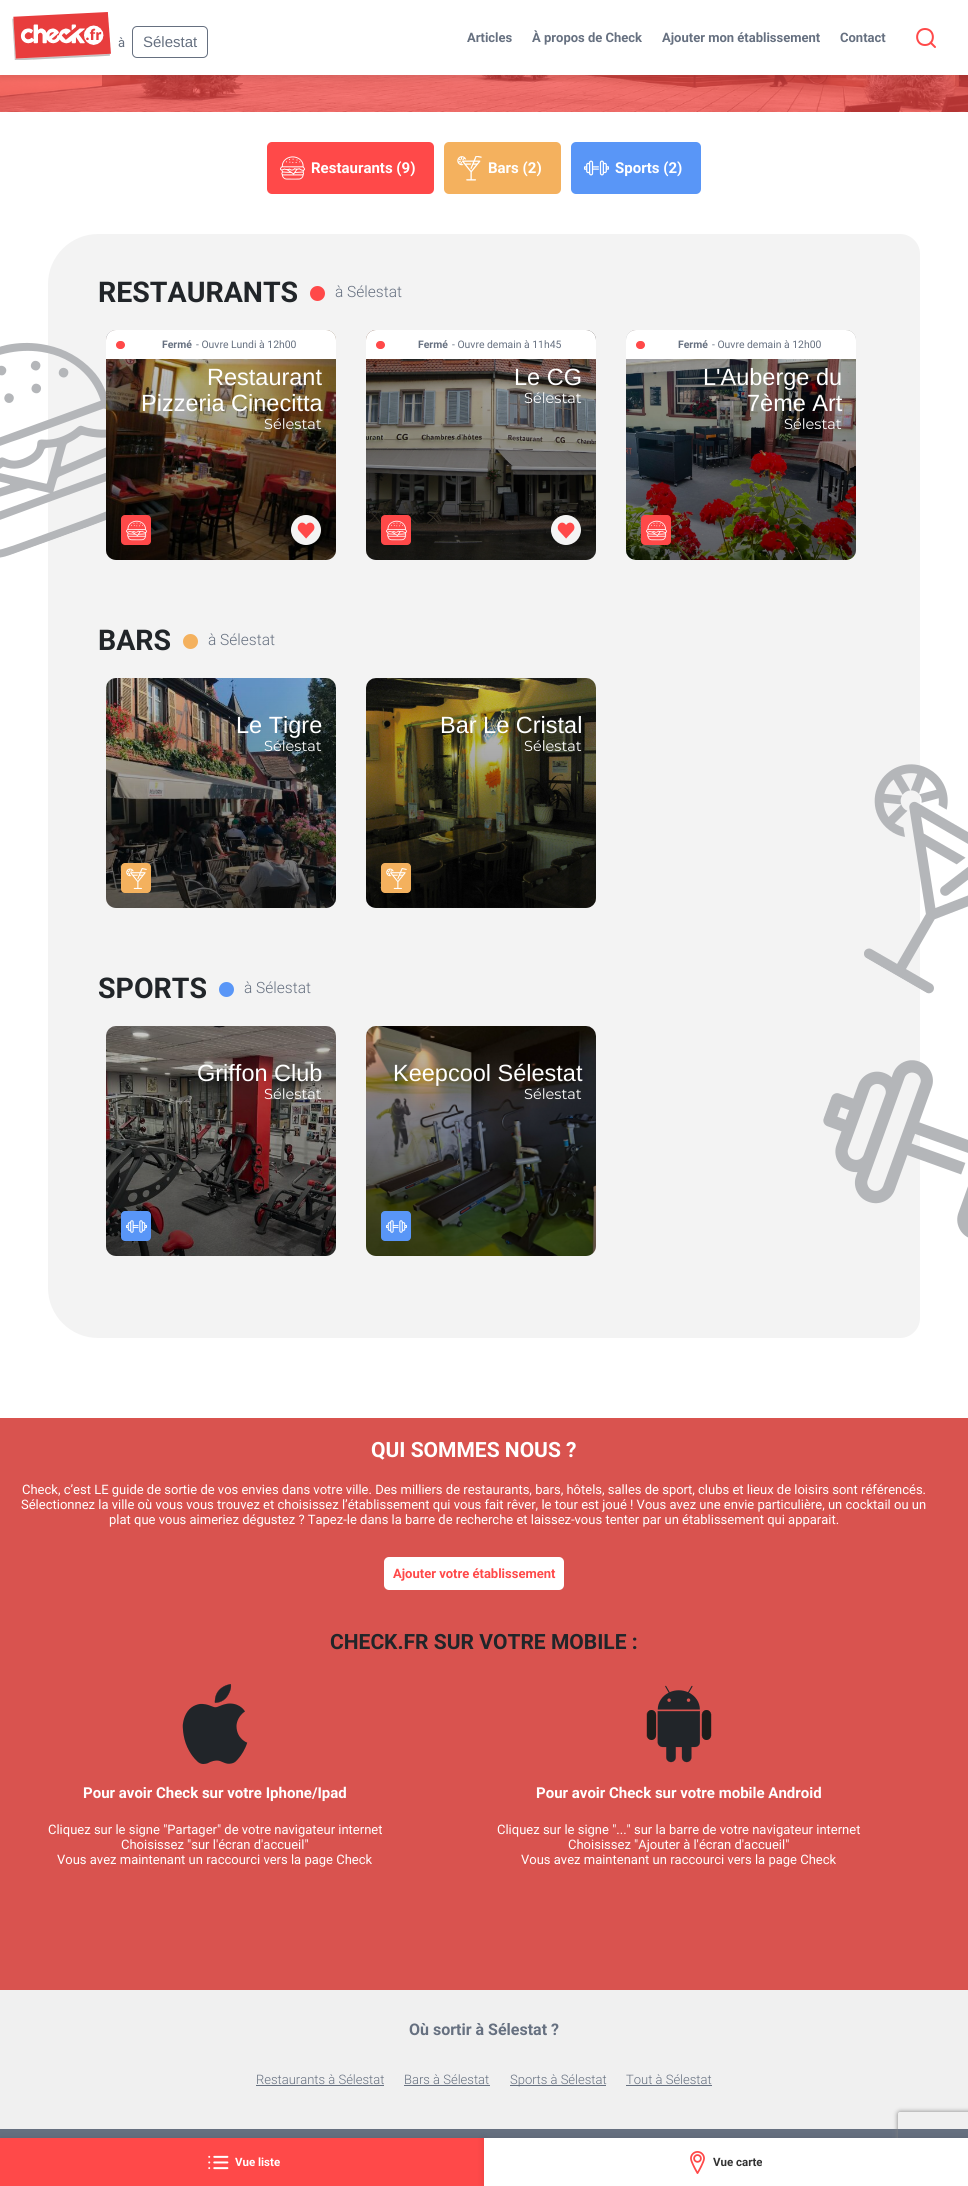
#include <cairo.h>
#include <math.h>
#include <stddef.h>


static void set_color(cairo_t *cr, unsigned color) {
    cairo_set_source_rgb(cr, (color >> 16) / 255.0, (color >> 8 & 255) / 255.0, (color & 255) / 255.0);
}

static void draw_text(cairo_t *cr, double x, double y, const char *s, const char *family, double size, int italic, int bold, unsigned color) {
    cairo_select_font_face(cr, family, italic ? CAIRO_FONT_SLANT_ITALIC : CAIRO_FONT_SLANT_NORMAL,
        bold ? CAIRO_FONT_WEIGHT_BOLD : CAIRO_FONT_WEIGHT_NORMAL);
    cairo_set_font_size(cr, size);
    set_color(cr, color);
    cairo_move_to(cr, x, y);
    cairo_show_text(cr, s);
}

static void fill_rect(cairo_t *cr, double x, double y, double w, double h, unsigned color) {
    set_color(cr, color);
    cairo_rectangle(cr, x, y, w, h);
    cairo_fill(cr);
}

static void rounded_rect(cairo_t *cr, double x, double y, double w, double h, double r) {
    cairo_new_sub_path(cr);
    cairo_arc(cr, x + w - r, y + h - r, r, 0, M_PI / 2);
    cairo_arc(cr, x + r, y + h - r, r, M_PI / 2, M_PI);
    cairo_arc(cr, x + r, y + r, r, M_PI, 1.5 * M_PI);
    cairo_arc(cr, x + w - r, y + r, r, 1.5 * M_PI, 2 * M_PI);
    cairo_close_path(cr);
}

static void draw_shadow(cairo_t *cr, double x, double y, double w, double h, double r, double blur, double alpha) {
    cairo_push_group_with_content(cr, CAIRO_CONTENT_ALPHA);
    cairo_set_operator(cr, CAIRO_OPERATOR_SOURCE);
    for (int i = 15; i >= -15 && fmin(w, h) + blur * i / 3 > 0; i -= 2) {
        double e = blur * i / 6;
        cairo_set_source_rgba(cr, 0, 0, 0, alpha * erfc((i - 1) / 8.5) / 2);
        rounded_rect(cr, x - e, y - e, w + 2 * e, h + 2 * e, fmax(0, fmin(r + e + blur * .6, fmin(w, h) / 2 + e)));
        cairo_fill(cr);
    }
    cairo_pattern_t *soft = cairo_pop_group(cr);
    cairo_mask(cr, soft);
    cairo_pattern_destroy(soft);
}

static void draw_image(cairo_t *cr, const char *path, double x, double y, double w, double h) {
    cairo_surface_t *image = cairo_image_surface_create_from_png(path);
    cairo_save(cr);
    cairo_set_source_surface(cr, image, x, y);
    cairo_rectangle(cr, x, y, w, h);
    cairo_fill(cr);
    cairo_restore(cr);
    cairo_surface_destroy(image);
}

int main(void) {
    cairo_surface_t *surface = cairo_image_surface_create(CAIRO_FORMAT_RGB24, 968, 2186);
    cairo_t *cr = cairo_create(surface);
    cairo_font_options_t *options = cairo_font_options_create();
    cairo_font_options_set_hint_metrics(options, CAIRO_HINT_METRICS_OFF);
    cairo_font_options_set_hint_style(options, CAIRO_HINT_STYLE_NONE);
    cairo_set_font_options(cr, options);
    cairo_set_miter_limit(cr, 4);
    cairo_pattern_t *gradient;
    set_color(cr, 0xFFFFFF);
    cairo_paint(cr);
    draw_image(cr, "assets/img2.png", 0, 75, 968, 37);
    set_color(cr, 0x000000);
    draw_shadow(cr, 0, 3, 968, 75, 0, 3, 0.1);
    fill_rect(cr, 0, 0, 968, 75, 0xFFFFFF);
    draw_image(cr, "assets/img1.png", 12, 12, 99, 48);
    draw_text(cr, 118, 47, "à", "Roboto", 13, 0, 0, 0x667080);
    rounded_rect(cr, 132.5, 26.5, 75, 31, 4.5);
    cairo_set_line_width(cr, 1);
    cairo_stroke(cr);
    draw_text(cr, 143, 47, "Sélestat", "Liberation Sans", 15, 0, 0, 0x667080);
    draw_text(cr, 467, 42, "Articles", "Roboto", 13, 0, 1, 0x667080);
    draw_text(cr, 532, 42, "À propos de Check", "Roboto", 13, 0, 1, 0x667080);
    draw_text(cr, 662, 42, "Ajouter mon établissement", "Roboto", 13, 0, 1, 0x667080);
    draw_text(cr, 840, 42, "Contact", "Roboto", 13, 0, 1, 0x667080);
    cairo_new_path(cr);
    cairo_move_to(cr, 925, 45);
    cairo_curve_to(cr, 935.5, 45, 935.5, 29, 925, 29);
    cairo_curve_to(cr, 914.5, 29, 914.5, 45, 925, 45);
    cairo_close_path(cr);
    cairo_move_to(cr, 935, 47);
    cairo_line_to(cr, 930.5, 42.5);
    set_color(cr, 0xFF4949);
    cairo_set_line_width(cr, 2);
    cairo_set_line_cap(cr, CAIRO_LINE_CAP_ROUND);
    cairo_set_line_join(cr, CAIRO_LINE_JOIN_ROUND);
    cairo_stroke(cr);
    rounded_rect(cr, 267, 142, 167, 52, 5);
    cairo_fill(cr);
    draw_image(cr, "assets/img3.png", 280, 156, 25, 24);
    draw_text(cr, 311, 173, "Restaurants (9)", "Roboto", 15, 0, 1, 0xFFFFFF);
    set_color(cr, 0xF4B15E);
    rounded_rect(cr, 444, 142, 117, 52, 5);
    cairo_fill(cr);
    draw_image(cr, "assets/img4.png", 457, 156, 25, 25);
    draw_text(cr, 488, 173, "Bars (2)", "Roboto", 15, 0, 1, 0xFFFFFF);
    set_color(cr, 0x5996F7);
    rounded_rect(cr, 571, 142, 130, 52, 5);
    cairo_fill(cr);
    draw_image(cr, "assets/img5.png", 584, 160, 25, 16);
    draw_text(cr, 615, 173, "Sports (2)", "Roboto", 15, 0, 1, 0xFFFFFF);
    set_color(cr, 0xF3F3F3);
    cairo_new_path(cr);
    cairo_move_to(cr, 98, 234);
    cairo_line_to(cr, 900, 234);
    cairo_curve_to(cr, 911, 234, 920, 243, 920, 254);
    cairo_line_to(cr, 920, 1318);
    cairo_curve_to(cr, 920, 1329, 911, 1338, 900, 1338);
    cairo_line_to(cr, 98, 1338);
    cairo_curve_to(cr, 70.5, 1338, 48, 1315.5, 48, 1288);
    cairo_line_to(cr, 48, 284);
    cairo_curve_to(cr, 48, 256.5, 70.5, 234, 98, 234);
    cairo_close_path(cr);
    cairo_fill(cr);
    draw_text(cr, 98, 302, "RESTAURANTS", "Roboto", 28.5, 0, 1, 0x212529);
    set_color(cr, 0xFF4949);
    cairo_new_path(cr);
    cairo_arc(cr, 317.5, 293.5, 7.5, 0, 2 * M_PI);
    cairo_fill(cr);
    draw_text(cr, 335, 297, "à Sélestat", "Roboto Light", 15.5, 0, 0, 0x667080);
    draw_image(cr, "assets/img6.png", 0, 342, 106, 216);
    draw_image(cr, "assets/img7.png", 106, 330, 230, 230);
    gradient = cairo_pattern_create_linear(221, 330, 221, 560);
    cairo_pattern_add_color_stop_rgba(gradient, 0, 0, 0, 0, 0.2);
    cairo_pattern_add_color_stop_rgba(gradient, 1, 0, 0, 0, 0.6);
    cairo_set_source(cr, gradient);
    cairo_pattern_destroy(gradient);
    rounded_rect(cr, 106, 330, 230, 230, 10);
    cairo_fill(cr);
    set_color(cr, 0xFFFFFF);
    cairo_new_path(cr);
    cairo_move_to(cr, 116, 330);
    cairo_line_to(cr, 326, 330);
    cairo_curve_to(cr, 331.5, 330, 336, 334.5, 336, 340);
    cairo_line_to(cr, 336, 359);
    cairo_line_to(cr, 106, 359);
    cairo_line_to(cr, 106, 340);
    cairo_curve_to(cr, 106, 334.5, 110.5, 330, 116, 330);
    cairo_close_path(cr);
    cairo_fill(cr);
    set_color(cr, 0xFF4949);
    rounded_rect(cr, 116, 341, 9, 8, 4);
    cairo_fill(cr);
    draw_text(cr, 162, 348, "Fermé", "Roboto", 10.4, 0, 1, 0x667080);
    draw_text(cr, 196, 348, "- Ouvre Lundi à 12h00", "Roboto", 10.4, 0, 0, 0x667080);
    draw_text(cr, 264, 429, "Sélestat", "Montserrat", 14.5, 0, 0, 0xFFFFFF);
    draw_text(cr, 207, 385, "Restaurant", "Liberation Sans", 23.5, 0, 0, 0xFFFFFF);
    draw_text(cr, 141, 411, "Pizzeria Cinecitta", "Liberation Sans", 23.5, 0, 0, 0xFFFFFF);
    set_color(cr, 0xFF4949);
    rounded_rect(cr, 121, 515, 30, 30, 4);
    cairo_fill(cr);
    draw_image(cr, "assets/img8.png", 126, 520, 21, 21);
    cairo_set_source_rgba(cr, 1, 1, 1, 0.95);
    cairo_arc(cr, 306, 530, 15, 0, 2 * M_PI);
    cairo_fill(cr);
    draw_image(cr, "assets/img9.png", 297, 522, 18, 17);
    draw_image(cr, "assets/img10.png", 366, 330, 230, 230);
    gradient = cairo_pattern_create_linear(481, 330, 481, 560);
    cairo_pattern_add_color_stop_rgba(gradient, 0, 0, 0, 0, 0.2);
    cairo_pattern_add_color_stop_rgba(gradient, 1, 0, 0, 0, 0.6);
    cairo_set_source(cr, gradient);
    cairo_pattern_destroy(gradient);
    rounded_rect(cr, 366, 330, 230, 230, 10);
    cairo_fill(cr);
    set_color(cr, 0xFFFFFF);
    cairo_new_path(cr);
    cairo_move_to(cr, 376, 330);
    cairo_line_to(cr, 586, 330);
    cairo_curve_to(cr, 591.5, 330, 596, 334.5, 596, 340);
    cairo_line_to(cr, 596, 359);
    cairo_line_to(cr, 366, 359);
    cairo_line_to(cr, 366, 340);
    cairo_curve_to(cr, 366, 334.5, 370.5, 330, 376, 330);
    cairo_close_path(cr);
    cairo_fill(cr);
    set_color(cr, 0xFF4949);
    rounded_rect(cr, 376, 341, 9, 8, 4);
    cairo_fill(cr);
    draw_text(cr, 418, 348, "Fermé", "Roboto", 10.4, 0, 1, 0x667080);
    draw_text(cr, 452, 348, "- Ouvre demain à 11h45", "Roboto", 10.4, 0, 0, 0x667080);
    draw_text(cr, 524, 403, "Sélestat", "Montserrat", 14.5, 0, 0, 0xFFFFFF);
    draw_text(cr, 514, 385, "Le CG", "Liberation Sans", 23.5, 0, 0, 0xFFFFFF);
    set_color(cr, 0xFF4949);
    rounded_rect(cr, 381, 515, 30, 30, 4);
    cairo_fill(cr);
    draw_image(cr, "assets/img8.png", 386, 520, 21, 21);
    cairo_set_source_rgba(cr, 1, 1, 1, 0.95);
    cairo_arc(cr, 566, 530, 15, 0, 2 * M_PI);
    cairo_fill(cr);
    draw_image(cr, "assets/img11.png", 557, 522, 18, 17);
    draw_image(cr, "assets/img12.png", 626, 330, 230, 230);
    gradient = cairo_pattern_create_linear(741, 330, 741, 560);
    cairo_pattern_add_color_stop_rgba(gradient, 0, 0, 0, 0, 0.2);
    cairo_pattern_add_color_stop_rgba(gradient, 1, 0, 0, 0, 0.6);
    cairo_set_source(cr, gradient);
    cairo_pattern_destroy(gradient);
    rounded_rect(cr, 626, 330, 230, 230, 10);
    cairo_fill(cr);
    set_color(cr, 0xFFFFFF);
    cairo_new_path(cr);
    cairo_move_to(cr, 636, 330);
    cairo_line_to(cr, 846, 330);
    cairo_curve_to(cr, 851.5, 330, 856, 334.5, 856, 340);
    cairo_line_to(cr, 856, 359);
    cairo_line_to(cr, 626, 359);
    cairo_line_to(cr, 626, 340);
    cairo_curve_to(cr, 626, 334.5, 630.5, 330, 636, 330);
    cairo_close_path(cr);
    cairo_fill(cr);
    set_color(cr, 0xFF4949);
    rounded_rect(cr, 636, 341, 9, 8, 4);
    cairo_fill(cr);
    draw_text(cr, 678, 348, "Fermé", "Roboto", 10.4, 0, 1, 0x667080);
    draw_text(cr, 712, 348, "- Ouvre demain à 12h00", "Roboto", 10.4, 0, 0, 0x667080);
    draw_text(cr, 784, 429, "Sélestat", "Montserrat", 14.5, 0, 0, 0xFFFFFF);
    draw_text(cr, 703, 385, "L'Auberge du", "Liberation Sans", 23.5, 0, 0, 0xFFFFFF);
    draw_text(cr, 747, 411, "7ème Art", "Liberation Sans", 23.5, 0, 0, 0xFFFFFF);
    set_color(cr, 0xFF4949);
    rounded_rect(cr, 641, 515, 30, 30, 4);
    cairo_fill(cr);
    draw_image(cr, "assets/img8.png", 646, 520, 21, 21);
    draw_text(cr, 98, 650, "BARS", "Roboto", 28.5, 0, 1, 0x212529);
    set_color(cr, 0xF4B15E);
    cairo_new_path(cr);
    cairo_arc(cr, 190.5, 641.5, 7.5, 0, 2 * M_PI);
    cairo_fill(cr);
    draw_text(cr, 208, 645, "à Sélestat", "Roboto Light", 15.5, 0, 0, 0x667080);
    draw_image(cr, "assets/img13.png", 106, 678, 230, 230);
    gradient = cairo_pattern_create_linear(221, 678, 221, 908);
    cairo_pattern_add_color_stop_rgba(gradient, 0, 0, 0, 0, 0.2);
    cairo_pattern_add_color_stop_rgba(gradient, 1, 0, 0, 0, 0.6);
    cairo_set_source(cr, gradient);
    cairo_pattern_destroy(gradient);
    rounded_rect(cr, 106, 678, 230, 230, 10);
    cairo_fill(cr);
    draw_text(cr, 236, 733, "Le Tigre", "Liberation Sans", 23.5, 0, 0, 0xFFFFFF);
    draw_text(cr, 264, 751, "Sélestat", "Montserrat", 14.5, 0, 0, 0xFFFFFF);
    set_color(cr, 0xF4B15E);
    rounded_rect(cr, 121, 863, 30, 30, 4);
    cairo_fill(cr);
    draw_image(cr, "assets/img14.png", 126, 868, 21, 21);
    draw_image(cr, "assets/img15.png", 366, 678, 230, 230);
    gradient = cairo_pattern_create_linear(481, 678, 481, 908);
    cairo_pattern_add_color_stop_rgba(gradient, 0, 0, 0, 0, 0.2);
    cairo_pattern_add_color_stop_rgba(gradient, 1, 0, 0, 0, 0.6);
    cairo_set_source(cr, gradient);
    cairo_pattern_destroy(gradient);
    rounded_rect(cr, 366, 678, 230, 230, 10);
    cairo_fill(cr);
    draw_text(cr, 440, 733, "Bar Le Cristal", "Liberation Sans", 23.5, 0, 0, 0xFFFFFF);
    draw_text(cr, 524, 751, "Sélestat", "Montserrat", 14.5, 0, 0, 0xFFFFFF);
    set_color(cr, 0xF4B15E);
    rounded_rect(cr, 381, 863, 30, 30, 4);
    cairo_fill(cr);
    draw_image(cr, "assets/img14.png", 386, 868, 21, 21);
    draw_image(cr, "assets/img16.png", 864, 764, 104, 230);
    draw_text(cr, 98, 998, "SPORTS", "Roboto", 28.5, 0, 1, 0x212529);
    set_color(cr, 0x5996F7);
    cairo_new_path(cr);
    cairo_arc(cr, 226.5, 989.5, 7.5, 0, 2 * M_PI);
    cairo_fill(cr);
    draw_text(cr, 244, 993, "à Sélestat", "Roboto Light", 15.5, 0, 0, 0x667080);
    draw_image(cr, "assets/img17.png", 106, 1026, 230, 230);
    gradient = cairo_pattern_create_linear(221, 1026, 221, 1256);
    cairo_pattern_add_color_stop_rgba(gradient, 0, 0, 0, 0, 0.2);
    cairo_pattern_add_color_stop_rgba(gradient, 1, 0, 0, 0, 0.6);
    cairo_set_source(cr, gradient);
    cairo_pattern_destroy(gradient);
    rounded_rect(cr, 106, 1026, 230, 230, 10);
    cairo_fill(cr);
    draw_text(cr, 197, 1081, "Griffon Club", "Liberation Sans", 23.5, 0, 0, 0xFFFFFF);
    draw_text(cr, 264, 1099, "Sélestat", "Montserrat", 14.5, 0, 0, 0xFFFFFF);
    set_color(cr, 0x5996F7);
    rounded_rect(cr, 121, 1211, 30, 30, 4);
    cairo_fill(cr);
    draw_image(cr, "assets/img18.png", 126, 1220, 21, 13);
    draw_image(cr, "assets/img19.png", 366, 1026, 230, 230);
    gradient = cairo_pattern_create_linear(481, 1026, 481, 1256);
    cairo_pattern_add_color_stop_rgba(gradient, 0, 0, 0, 0, 0.2);
    cairo_pattern_add_color_stop_rgba(gradient, 1, 0, 0, 0, 0.6);
    cairo_set_source(cr, gradient);
    cairo_pattern_destroy(gradient);
    rounded_rect(cr, 366, 1026, 230, 230, 10);
    cairo_fill(cr);
    draw_text(cr, 393, 1081, "Keepcool Sélestat", "Liberation Sans", 23.5, 0, 0, 0xFFFFFF);
    draw_text(cr, 524, 1099, "Sélestat", "Montserrat", 14.5, 0, 0, 0xFFFFFF);
    set_color(cr, 0x5996F7);
    rounded_rect(cr, 381, 1211, 30, 30, 4);
    cairo_fill(cr);
    draw_image(cr, "assets/img18.png", 386, 1220, 21, 13);
    draw_image(cr, "assets/img20.png", 823, 1060, 145, 178);
    fill_rect(cr, 0, 1990, 968, 139, 0xF0F0F0);
    fill_rect(cr, 0, 2129, 968, 9, 0x667080);
    set_color(cr, 0x000000);
    draw_shadow(cr, 0, 2138, 484, 48, 0, 4, 0.1);
    fill_rect(cr, 0, 2138, 484, 48, 0xFF4949);
    draw_image(cr, "assets/img21.png", 208, 2155, 21, 15);
    draw_text(cr, 235, 2166, "Vue liste", "Roboto", 11.5, 0, 1, 0xFFFFFF);
    set_color(cr, 0x000000);
    draw_shadow(cr, 484, 2138, 484, 48, 0, 4, 0.1);
    cairo_save(cr);
    cairo_set_fill_rule(cr, CAIRO_FILL_RULE_EVEN_ODD);
    cairo_new_path(cr);
    cairo_move_to(cr, 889, 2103);
    cairo_line_to(cr, 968, 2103);
    cairo_line_to(cr, 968, 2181);
    cairo_line_to(cr, 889, 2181);
    cairo_close_path(cr);
    cairo_move_to(cr, 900, 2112);
    cairo_line_to(cr, 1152, 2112);
    cairo_curve_to(cr, 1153, 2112, 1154, 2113, 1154, 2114);
    cairo_line_to(cr, 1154, 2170);
    cairo_curve_to(cr, 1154, 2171, 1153, 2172, 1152, 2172);
    cairo_line_to(cr, 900, 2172);
    cairo_curve_to(cr, 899, 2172, 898, 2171, 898, 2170);
    cairo_line_to(cr, 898, 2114);
    cairo_curve_to(cr, 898, 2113, 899, 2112, 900, 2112);
    cairo_close_path(cr);
    cairo_clip(cr);
    set_color(cr, 0x808080);
    draw_shadow(cr, 898, 2112, 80, 60, 2, 2.5, 1);
    cairo_restore(cr);
    fill_rect(cr, 484, 2138, 484, 48, 0xFFFFFF);
    draw_image(cr, "assets/img22.png", 690, 2151, 15, 23);
    draw_text(cr, 713, 2166, "Vue carte", "Roboto", 11.5, 0, 1, 0x333333);
    fill_rect(cr, 0, 1418, 968, 572, 0xD9534F);
    draw_text(cr, 371, 1457, "QUI SOMMES NOUS ?", "Roboto", 21, 0, 1, 0xFFFFFF);
    draw_text(cr, 22, 1494, "Check, c’est LE guide de sortie de vos envies dans votre ville. Des milliers de restaurants, bars, hôtels, salles de sport, clubs et lieux de loisirs sont référencés.", "Roboto", 13, 0, 0, 0xFFFFFF);
    draw_text(cr, 21, 1509, "Sélectionnez la ville où vous vous trouvez et choisissez l’établissement qui vous fait rêver, le tour est joué ! Vous avez une envie particulière, un cocktail ou un", "Roboto", 13, 0, 0, 0xFFFFFF);
    draw_text(cr, 109, 1524, "plat que vous aimeriez dégustez ? Tapez-le dans la barre de recherche et laissez-vous tenter par un établissement qui apparait.", "Roboto", 13, 0, 0, 0xFFFFFF);
    rounded_rect(cr, 384, 1557, 180, 33, 5);
    cairo_fill(cr);
    draw_text(cr, 393, 1578, "Ajouter votre établissement", "Roboto", 13, 0, 1, 0xFF4949);
    draw_text(cr, 330, 1649, "CHECK.FR SUR VOTRE MOBILE :", "Roboto", 21, 0, 1, 0x212529);
    draw_image(cr, "assets/img23.png", 182, 1684, 66, 80);
    draw_text(cr, 83, 1798, "Pour avoir Check sur votre Iphone/Ipad", "Roboto", 15, 0, 1, 0xFFFFFF);
    draw_text(cr, 48, 1834, "Cliquez sur le signe \"Partager\" de votre navigateur internet", "Roboto", 13, 0, 0, 0xFFFFFF);
    draw_text(cr, 121, 1849, "Choisissez \"sur l'écran d'accueil\"", "Roboto", 13, 0, 0, 0xFFFFFF);
    draw_text(cr, 57, 1864, "Vous avez maintenant un raccourci vers la page Check", "Roboto", 13, 0, 0, 0xFFFFFF);
    draw_image(cr, "assets/img24.png", 646, 1685, 66, 78);
    draw_text(cr, 536, 1798, "Pour avoir Check sur votre mobile Android", "Roboto", 15, 0, 1, 0xFFFFFF);
    draw_text(cr, 497, 1834, "Cliquez sur le signe \"...\" sur la barre de votre navigateur internet", "Roboto", 13, 0, 0, 0xFFFFFF);
    draw_text(cr, 568, 1849, "Choisissez \"Ajouter à l'écran d'accueil\"", "Roboto", 13, 0, 0, 0xFFFFFF);
    draw_text(cr, 521, 1864, "Vous avez maintenant un raccourci vers la page Check", "Roboto", 13, 0, 0, 0xFFFFFF);
    draw_text(cr, 409, 2035, "Où sortir à Sélestat ?", "Roboto", 16, 0, 1, 0x667080);
    draw_text(cr, 256, 2084, "Restaurants à Sélestat", "Roboto Light", 13, 0, 0, 0x667080);
    fill_rect(cr, 256, 2085, 128, 1, 0x667080);
    draw_text(cr, 404, 2084, "Bars à Sélestat", "Roboto Light", 13, 0, 0, 0x667080);
    fill_rect(cr, 404, 2085, 86, 1, 0x667080);
    fill_rect(cr, 510, 2085, 96, 1, 0x667080);
    draw_text(cr, 510, 2084, "Sports à Sélestat", "Roboto Light", 13, 0, 0, 0x667080);
    draw_text(cr, 626, 2084, "Tout à Sélestat", "Roboto Light", 13, 0, 0, 0x667080);
    fill_rect(cr, 626, 2085, 86, 1, 0x667080);
    cairo_surface_write_to_png(surface, "output.png");
    cairo_font_options_destroy(options);
    cairo_destroy(cr);
    cairo_surface_destroy(surface);
    return 0;
}
